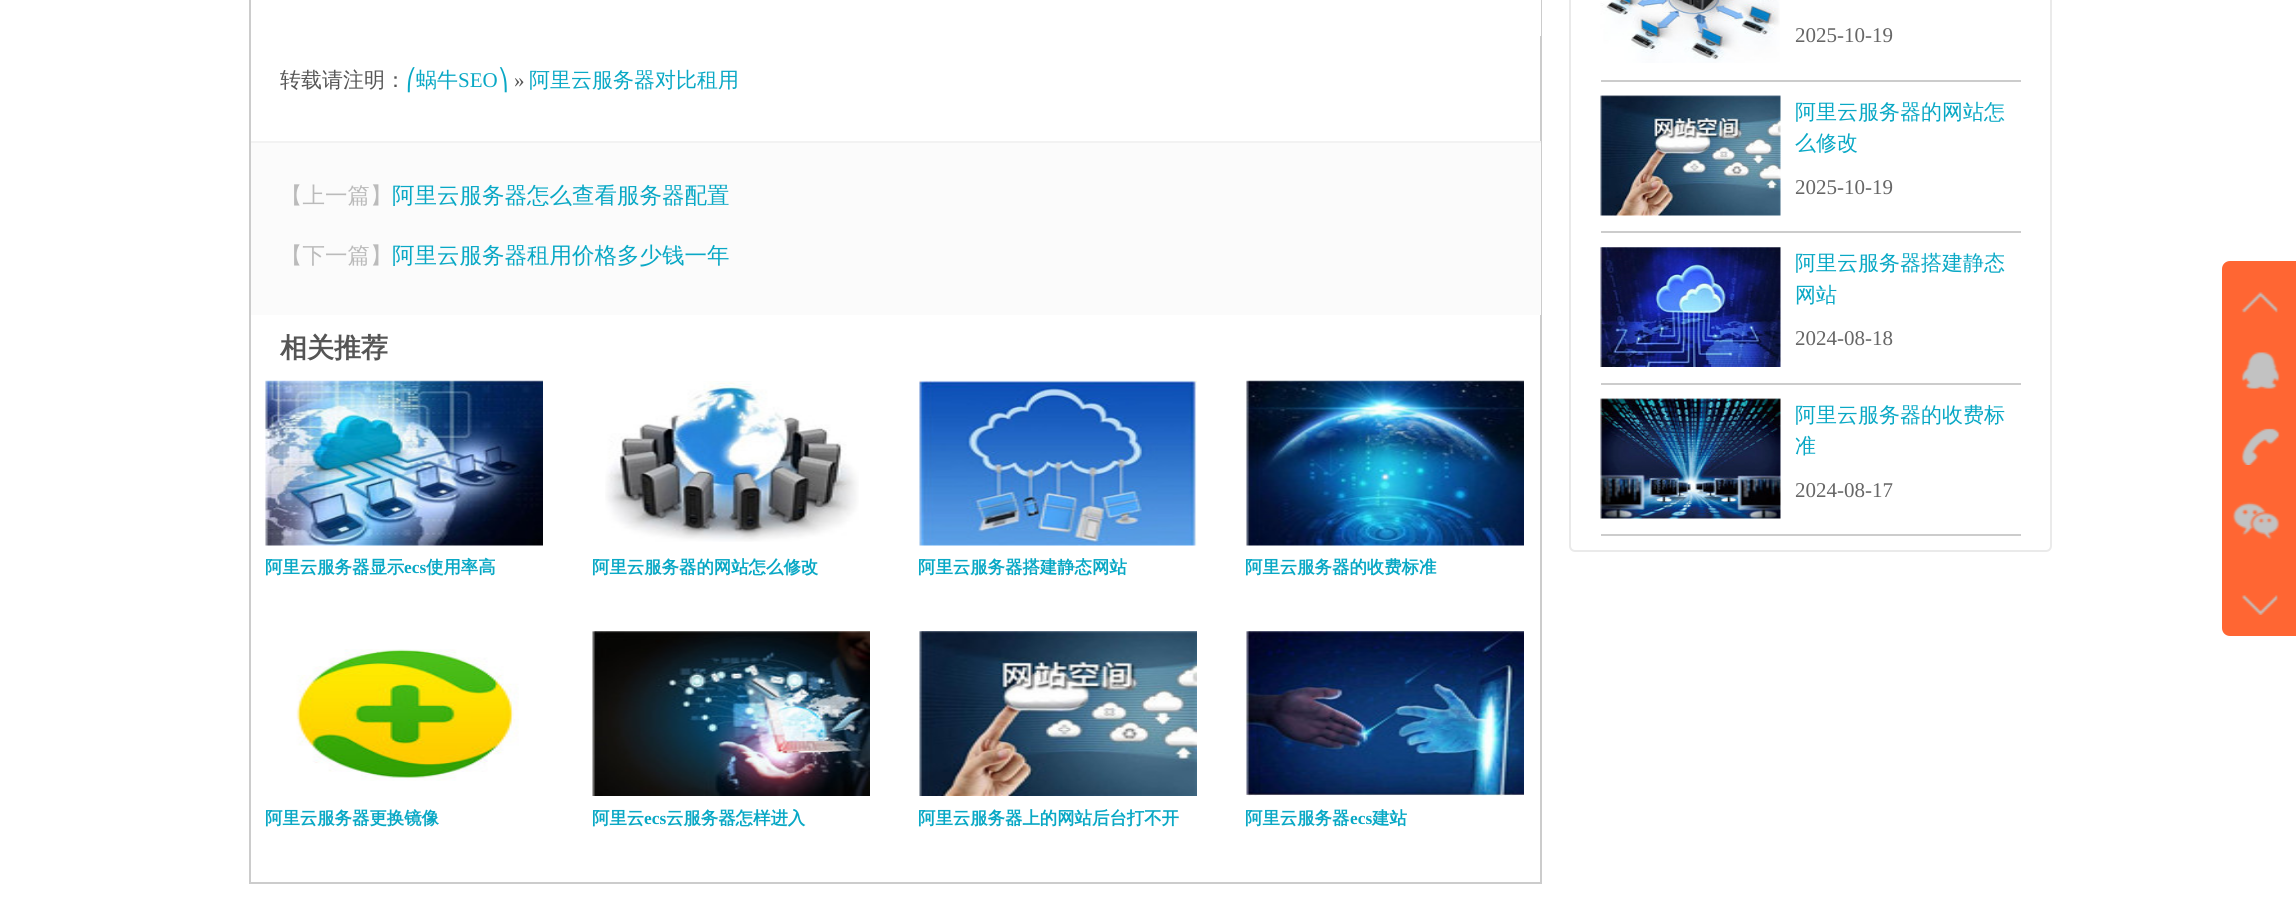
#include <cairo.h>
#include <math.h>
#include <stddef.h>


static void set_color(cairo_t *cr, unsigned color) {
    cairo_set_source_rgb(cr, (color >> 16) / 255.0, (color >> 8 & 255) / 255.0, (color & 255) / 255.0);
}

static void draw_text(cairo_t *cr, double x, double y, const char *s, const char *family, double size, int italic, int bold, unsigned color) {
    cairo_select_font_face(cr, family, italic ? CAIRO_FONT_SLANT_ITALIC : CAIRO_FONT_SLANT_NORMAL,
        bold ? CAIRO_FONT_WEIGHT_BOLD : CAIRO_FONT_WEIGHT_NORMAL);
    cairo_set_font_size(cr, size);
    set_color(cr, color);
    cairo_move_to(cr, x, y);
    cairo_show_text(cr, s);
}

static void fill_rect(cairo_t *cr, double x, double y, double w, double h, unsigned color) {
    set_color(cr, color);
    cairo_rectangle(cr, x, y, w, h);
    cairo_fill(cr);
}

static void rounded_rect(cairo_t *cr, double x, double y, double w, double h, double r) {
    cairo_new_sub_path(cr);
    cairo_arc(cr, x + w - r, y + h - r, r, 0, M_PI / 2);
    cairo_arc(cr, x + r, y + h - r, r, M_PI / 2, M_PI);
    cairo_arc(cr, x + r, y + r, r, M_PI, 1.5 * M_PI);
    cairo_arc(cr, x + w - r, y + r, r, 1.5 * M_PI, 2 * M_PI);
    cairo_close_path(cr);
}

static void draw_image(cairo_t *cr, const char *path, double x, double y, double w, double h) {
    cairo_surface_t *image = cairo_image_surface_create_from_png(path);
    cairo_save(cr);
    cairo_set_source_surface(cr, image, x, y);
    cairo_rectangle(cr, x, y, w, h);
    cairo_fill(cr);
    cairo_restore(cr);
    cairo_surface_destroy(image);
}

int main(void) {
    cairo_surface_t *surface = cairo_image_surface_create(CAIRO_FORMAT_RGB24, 2296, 900);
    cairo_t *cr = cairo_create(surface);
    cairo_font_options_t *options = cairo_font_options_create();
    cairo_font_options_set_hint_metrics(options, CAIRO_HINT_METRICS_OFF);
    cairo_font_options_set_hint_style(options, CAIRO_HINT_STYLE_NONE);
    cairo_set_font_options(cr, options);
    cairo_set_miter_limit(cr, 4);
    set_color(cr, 0xFFFFFF);
    cairo_paint(cr);
    cairo_rectangle(cr, 250, -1, 1291, 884);
    set_color(cr, 0xCCCCCC);
    cairo_stroke(cr);
    fill_rect(cr, 1540, 0, 1, 36, 0xFFFFFF);
    draw_text(cr, 280, 87, "转载请注明：", "WenQuanYi Zen Hei Medium", 21, 0, 0, 0x555555);
    draw_text(cr, 406, 87, "⎛", "DejaVu Sans", 21, 0, 0, 0x09A8C5);
    draw_text(cr, 416, 87, "蜗牛", "WenQuanYi Zen Hei Medium", 21, 0, 0, 0x09A8C5);
    draw_text(cr, 458, 87, "SEO", "Liberation Serif", 21, 0, 0, 0x09A8C5);
    draw_text(cr, 498, 87, "⎞", "DejaVu Sans", 21, 0, 0, 0x09A8C5);
    draw_text(cr, 514, 87, "»", "Liberation Serif", 21, 0, 0, 0x555555);
    draw_text(cr, 529, 87, "阿里云服务器对比租用", "WenQuanYi Zen Hei Medium", 21, 0, 0, 0x09A8C5);
    fill_rect(cr, 251, 143, 1290, 172, 0xFBFBFB);
    fill_rect(cr, 251, 141, 1290, 2, 0xF2F2F2);
    draw_text(cr, 280, 203, "【上一篇】", "WenQuanYi Zen Hei Medium", 22.5, 0, 0, 0xBBBBBB);
    draw_text(cr, 392, 203, "阿里云服务器怎么查看服务器配置", "WenQuanYi Zen Hei Medium", 22.5, 0, 0, 0x09A8C5);
    draw_text(cr, 280, 263, "【下一篇】", "WenQuanYi Zen Hei Medium", 22.5, 0, 0, 0xBBBBBB);
    draw_text(cr, 392, 263, "阿里云服务器租用价格多少钱一年", "WenQuanYi Zen Hei Medium", 22.5, 0, 0, 0x09A8C5);
    draw_text(cr, 280, 357, "相关推荐", "WenQuanYi Zen Hei", 27, 0, 1, 0x555555);
    draw_image(cr, "assets/img1.png", 265, 380, 278, 166);
    draw_text(cr, 265, 573, "阿里云服务器显示", "WenQuanYi Zen Hei", 17.4, 0, 1, 0x09A8C5);
    draw_text(cr, 404, 573, "ecs", "Liberation Serif", 17.4, 0, 1, 0x09A8C5);
    draw_text(cr, 426, 573, "使用率高", "WenQuanYi Zen Hei", 17.4, 0, 1, 0x09A8C5);
    draw_image(cr, "assets/img2.png", 605, 381, 254, 161);
    draw_text(cr, 592, 573, "阿里云服务器的网站怎么修改", "WenQuanYi Zen Hei", 17.4, 0, 1, 0x09A8C5);
    draw_image(cr, "assets/img3.png", 919, 380, 278, 166);
    draw_text(cr, 918, 573, "阿里云服务器搭建静态网站", "WenQuanYi Zen Hei", 17.4, 0, 1, 0x09A8C5);
    draw_image(cr, "assets/img4.png", 1246, 380, 278, 166);
    draw_text(cr, 1245, 573, "阿里云服务器的收费标准", "WenQuanYi Zen Hei", 17.4, 0, 1, 0x09A8C5);
    draw_image(cr, "assets/img5.png", 296, 649, 223, 132);
    draw_text(cr, 265, 824, "阿里云服务器更换镜像", "WenQuanYi Zen Hei", 17.4, 0, 1, 0x09A8C5);
    draw_image(cr, "assets/img6.png", 592, 631, 278, 165);
    draw_text(cr, 592, 824, "阿里云", "WenQuanYi Zen Hei", 17.4, 0, 1, 0x09A8C5);
    draw_text(cr, 644, 824, "ecs", "Liberation Serif", 17.4, 0, 1, 0x09A8C5);
    draw_text(cr, 666, 824, "云服务器怎样进入", "WenQuanYi Zen Hei", 17.4, 0, 1, 0x09A8C5);
    draw_image(cr, "assets/img7.png", 919, 631, 278, 165);
    draw_text(cr, 918, 824, "阿里云服务器上的网站后台打不开", "WenQuanYi Zen Hei", 17.4, 0, 1, 0x09A8C5);
    draw_image(cr, "assets/img8.png", 1246, 631, 278, 165);
    draw_text(cr, 1245, 824, "阿里云服务器", "WenQuanYi Zen Hei", 17.4, 0, 1, 0x09A8C5);
    draw_text(cr, 1350, 824, "ecs", "Liberation Serif", 17.4, 0, 1, 0x09A8C5);
    draw_text(cr, 1372, 824, "建站", "WenQuanYi Zen Hei", 17.4, 0, 1, 0x09A8C5);
    rounded_rect(cr, 1570, -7, 481, 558, 5);
    set_color(cr, 0xEAEAEA);
    cairo_stroke(cr);
    fill_rect(cr, 1601, 80, 420, 2, 0xCCCCCC);
    draw_image(cr, "assets/img9.png", 1600, 0, 180, 63);
    draw_text(cr, 1795, 42, "2025-10-19", "Liberation Serif", 21, 0, 0, 0x666666);
    fill_rect(cr, 1601, 231, 420, 2, 0xCCCCCC);
    draw_image(cr, "assets/img10.png", 1600, 95, 181, 121);
    draw_text(cr, 1795, 119, "阿里云服务器的网站怎", "WenQuanYi Zen Hei Medium", 21, 0, 0, 0x09A8C5);
    draw_text(cr, 1795, 150, "么修改", "WenQuanYi Zen Hei Medium", 21, 0, 0, 0x09A8C5);
    draw_text(cr, 1795, 194, "2025-10-19", "Liberation Serif", 21, 0, 0, 0x666666);
    fill_rect(cr, 1601, 383, 420, 2, 0xCCCCCC);
    draw_image(cr, "assets/img11.png", 1600, 247, 181, 120);
    draw_text(cr, 1795, 270, "阿里云服务器搭建静态", "WenQuanYi Zen Hei Medium", 21, 0, 0, 0x09A8C5);
    draw_text(cr, 1795, 302, "网站", "WenQuanYi Zen Hei Medium", 21, 0, 0, 0x09A8C5);
    draw_text(cr, 1795, 345, "2024-08-18", "Liberation Serif", 21, 0, 0, 0x666666);
    fill_rect(cr, 1601, 534, 420, 2, 0xCCCCCC);
    draw_image(cr, "assets/img12.png", 1600, 398, 181, 121);
    draw_text(cr, 1795, 422, "阿里云服务器的收费标", "WenQuanYi Zen Hei Medium", 21, 0, 0, 0x09A8C5);
    draw_text(cr, 1795, 453, "准", "WenQuanYi Zen Hei Medium", 21, 0, 0, 0x09A8C5);
    draw_text(cr, 1795, 497, "2024-08-17", "Liberation Serif", 21, 0, 0, 0x666666);
    set_color(cr, 0xFF6633);
    cairo_new_path(cr);
    cairo_move_to(cr, 2230, 261);
    cairo_line_to(cr, 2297, 261);
    cairo_line_to(cr, 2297, 636);
    cairo_line_to(cr, 2230, 636);
    cairo_curve_to(cr, 2225.5, 636, 2222, 632.5, 2222, 628);
    cairo_line_to(cr, 2222, 269);
    cairo_curve_to(cr, 2222, 264.5, 2225.5, 261, 2230, 261);
    cairo_close_path(cr);
    cairo_fill(cr);
    draw_image(cr, "assets/img13.png", 2241, 292, 37, 21);
    draw_image(cr, "assets/img14.png", 2241, 352, 39, 37);
    draw_image(cr, "assets/img15.png", 2241, 428, 39, 37);
    draw_image(cr, "assets/img16.png", 2232, 502, 48, 38);
    draw_image(cr, "assets/img17.png", 2241, 595, 37, 20);
    cairo_surface_write_to_png(surface, "output.png");
    cairo_font_options_destroy(options);
    cairo_destroy(cr);
    cairo_surface_destroy(surface);
    return 0;
}
